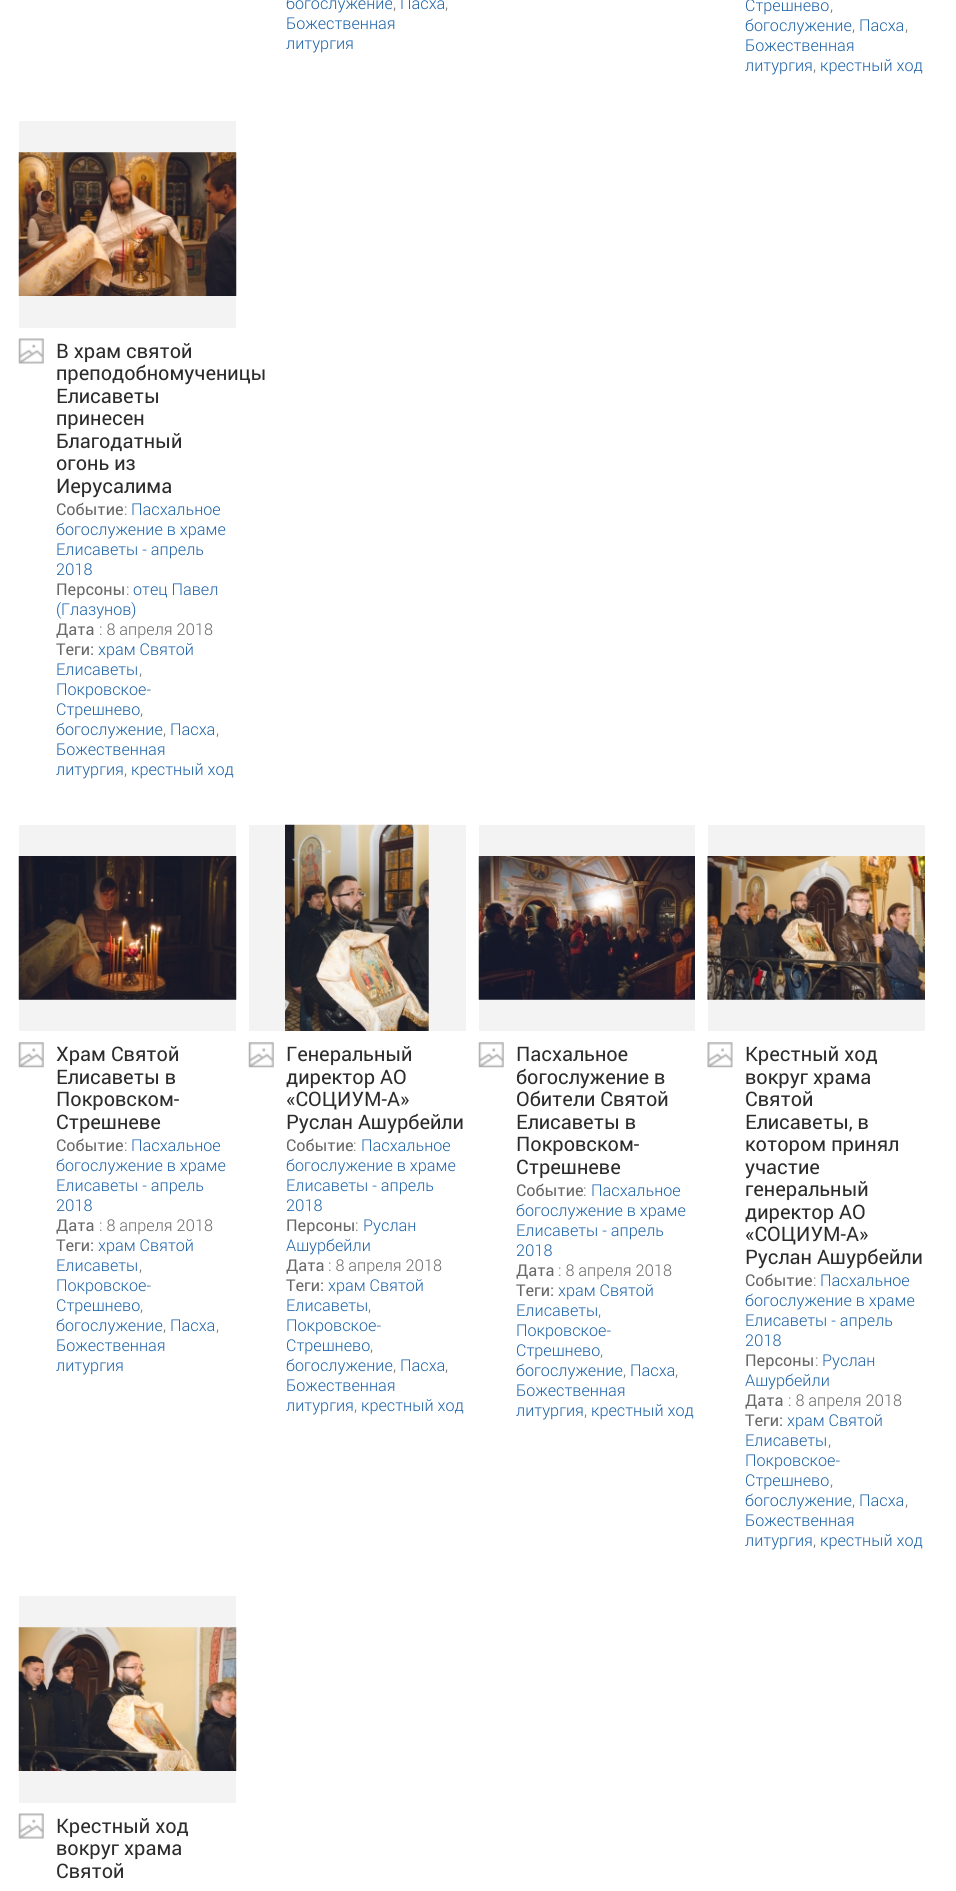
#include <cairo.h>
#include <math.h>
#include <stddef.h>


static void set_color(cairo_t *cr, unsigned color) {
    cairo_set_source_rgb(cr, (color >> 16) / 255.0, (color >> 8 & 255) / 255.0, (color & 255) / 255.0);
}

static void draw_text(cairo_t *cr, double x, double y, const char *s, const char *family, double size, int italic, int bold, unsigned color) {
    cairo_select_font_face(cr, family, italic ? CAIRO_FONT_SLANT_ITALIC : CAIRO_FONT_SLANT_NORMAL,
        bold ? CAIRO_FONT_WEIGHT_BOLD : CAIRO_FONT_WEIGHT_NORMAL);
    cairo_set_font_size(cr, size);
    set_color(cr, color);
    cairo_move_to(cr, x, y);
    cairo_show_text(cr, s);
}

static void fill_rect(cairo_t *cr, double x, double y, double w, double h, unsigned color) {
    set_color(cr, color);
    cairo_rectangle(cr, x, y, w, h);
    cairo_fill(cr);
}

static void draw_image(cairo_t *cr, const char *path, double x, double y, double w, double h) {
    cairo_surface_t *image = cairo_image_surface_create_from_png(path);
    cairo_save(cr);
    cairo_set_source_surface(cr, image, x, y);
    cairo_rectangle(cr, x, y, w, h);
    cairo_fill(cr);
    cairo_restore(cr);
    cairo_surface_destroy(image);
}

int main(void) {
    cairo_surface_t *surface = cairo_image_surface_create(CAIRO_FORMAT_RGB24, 956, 1891);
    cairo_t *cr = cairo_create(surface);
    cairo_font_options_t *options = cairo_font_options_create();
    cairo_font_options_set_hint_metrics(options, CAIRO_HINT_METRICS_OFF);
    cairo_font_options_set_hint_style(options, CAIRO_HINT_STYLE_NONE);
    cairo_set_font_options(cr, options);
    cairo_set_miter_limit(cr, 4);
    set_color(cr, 0xFFFFFF);
    cairo_paint(cr);
    draw_text(cr, 286, 9, "богослужение", "Roboto Light", 16.25, 0, 0, 0x1D62A7);
    draw_text(cr, 393, 9, ",", "Roboto Light", 16.25, 0, 0, 0x686868);
    draw_text(cr, 400, 9, "Пасха", "Roboto Light", 16.25, 0, 0, 0x1D62A7);
    draw_text(cr, 445, 9, ",", "Roboto Light", 16.25, 0, 0, 0x686868);
    draw_text(cr, 286, 29, "Божественная", "Roboto Light", 16.25, 0, 0, 0x1D62A7);
    draw_text(cr, 286, 49, "литургия", "Roboto Light", 16.25, 0, 0, 0x1D62A7);
    draw_text(cr, 745, 11, "Стрешнево", "Roboto Light", 16.25, 0, 0, 0x1D62A7);
    draw_text(cr, 830, 11, ",", "Roboto Light", 16.25, 0, 0, 0x686868);
    draw_text(cr, 745, 31, "богослужение", "Roboto Light", 16.25, 0, 0, 0x1D62A7);
    draw_text(cr, 852, 31, ",", "Roboto Light", 16.25, 0, 0, 0x686868);
    draw_text(cr, 859, 31, "Пасха", "Roboto Light", 16.25, 0, 0, 0x1D62A7);
    draw_text(cr, 905, 31, ",", "Roboto Light", 16.25, 0, 0, 0x686868);
    draw_text(cr, 745, 51, "Божественная", "Roboto Light", 16.25, 0, 0, 0x1D62A7);
    draw_text(cr, 745, 71, "литургия", "Roboto Light", 16.25, 0, 0, 0x1D62A7);
    draw_text(cr, 813, 71, ",", "Roboto Light", 16.25, 0, 0, 0x686868);
    draw_text(cr, 820, 71, "крестный ход", "Roboto Light", 16.25, 0, 0, 0x1D62A7);
    fill_rect(cr, 19, 121, 217, 207, 0xF3F3F3);
    draw_image(cr, "assets/img1.png", 18, 152, 219, 144);
    draw_image(cr, "assets/img2.png", 18, 338, 26, 26);
    draw_text(cr, 56, 358, "В храм святой", "Roboto", 20, 0, 0, 0x2C2C2C);
    draw_text(cr, 56, 380, "преподобномученицы", "Roboto", 20, 0, 0, 0x2C2C2C);
    draw_text(cr, 56, 403, "Елисаветы", "Roboto", 20, 0, 0, 0x2C2C2C);
    draw_text(cr, 56, 425, "принесен", "Roboto", 20, 0, 0, 0x2C2C2C);
    draw_text(cr, 56, 448, "Благодатный", "Roboto", 20, 0, 0, 0x2C2C2C);
    draw_text(cr, 56, 470, "огонь из", "Roboto", 20, 0, 0, 0x2C2C2C);
    draw_text(cr, 56, 493, "Иерусалима", "Roboto", 20, 0, 0, 0x2C2C2C);
    draw_text(cr, 56, 515, "Событие", "Roboto", 16.25, 0, 0, 0x686868);
    draw_text(cr, 124, 515, ":", "Roboto Light", 16.25, 0, 0, 0x686868);
    draw_text(cr, 131, 515, "Пасхальное", "Roboto Light", 16.25, 0, 0, 0x1D62A7);
    draw_text(cr, 56, 535, "богослужение в храме", "Roboto Light", 16.25, 0, 0, 0x1D62A7);
    draw_text(cr, 56, 555, "Елисаветы - апрель", "Roboto Light", 16.25, 0, 0, 0x1D62A7);
    draw_text(cr, 56, 575, "2018", "Roboto Light", 16.25, 0, 0, 0x1D62A7);
    draw_text(cr, 56, 595, "Персоны", "Roboto", 16.25, 0, 0, 0x686868);
    draw_text(cr, 126, 595, ":", "Roboto Light", 16.25, 0, 0, 0x686868);
    draw_text(cr, 133, 595, "отец Павел", "Roboto Light", 16.25, 0, 0, 0x1D62A7);
    draw_text(cr, 56, 615, "(Глазунов)", "Roboto Light", 16.25, 0, 0, 0x1D62A7);
    draw_text(cr, 56, 635, "Дата", "Roboto", 16.25, 0, 0, 0x686868);
    draw_text(cr, 99, 635, ": 8 апреля 2018", "Roboto Light", 16.25, 0, 0, 0x686868);
    draw_text(cr, 56, 655, "Теги:", "Roboto", 16.25, 0, 0, 0x686868);
    draw_text(cr, 98, 655, "храм Святой", "Roboto Light", 16.25, 0, 0, 0x1D62A7);
    draw_text(cr, 56, 675, "Елисаветы", "Roboto Light", 16.25, 0, 0, 0x1D62A7);
    draw_text(cr, 139, 675, ",", "Roboto Light", 16.25, 0, 0, 0x686868);
    draw_text(cr, 56, 695, "Покровское-", "Roboto Light", 16.25, 0, 0, 0x1D62A7);
    draw_text(cr, 56, 715, "Стрешнево", "Roboto Light", 16.25, 0, 0, 0x1D62A7);
    draw_text(cr, 140, 715, ",", "Roboto Light", 16.25, 0, 0, 0x686868);
    draw_text(cr, 56, 735, "богослужение", "Roboto Light", 16.25, 0, 0, 0x1D62A7);
    draw_text(cr, 163, 735, ",", "Roboto Light", 16.25, 0, 0, 0x686868);
    draw_text(cr, 170, 735, "Пасха", "Roboto Light", 16.25, 0, 0, 0x1D62A7);
    draw_text(cr, 216, 735, ",", "Roboto Light", 16.25, 0, 0, 0x686868);
    draw_text(cr, 56, 755, "Божественная", "Roboto Light", 16.25, 0, 0, 0x1D62A7);
    draw_text(cr, 56, 775, "литургия", "Roboto Light", 16.25, 0, 0, 0x1D62A7);
    draw_text(cr, 124, 775, ",", "Roboto Light", 16.25, 0, 0, 0x686868);
    draw_text(cr, 131, 775, "крестный ход", "Roboto Light", 16.25, 0, 0, 0x1D62A7);
    fill_rect(cr, 19, 825, 217, 206, 0xF3F3F3);
    draw_image(cr, "assets/img3.png", 18, 856, 219, 144);
    draw_image(cr, "assets/img4.png", 18, 1042, 26, 26);
    draw_text(cr, 56, 1061, "Храм Святой", "Roboto", 20, 0, 0, 0x2C2C2C);
    draw_text(cr, 56, 1084, "Елисаветы в", "Roboto", 20, 0, 0, 0x2C2C2C);
    draw_text(cr, 56, 1106, "Покровском-", "Roboto", 20, 0, 0, 0x2C2C2C);
    draw_text(cr, 56, 1129, "Стрешневе", "Roboto", 20, 0, 0, 0x2C2C2C);
    draw_text(cr, 56, 1151, "Событие", "Roboto", 16.25, 0, 0, 0x686868);
    draw_text(cr, 124, 1151, ":", "Roboto Light", 16.25, 0, 0, 0x686868);
    draw_text(cr, 131, 1151, "Пасхальное", "Roboto Light", 16.25, 0, 0, 0x1D62A7);
    draw_text(cr, 56, 1171, "богослужение в храме", "Roboto Light", 16.25, 0, 0, 0x1D62A7);
    draw_text(cr, 56, 1191, "Елисаветы - апрель", "Roboto Light", 16.25, 0, 0, 0x1D62A7);
    draw_text(cr, 56, 1211, "2018", "Roboto Light", 16.25, 0, 0, 0x1D62A7);
    draw_text(cr, 56, 1231, "Дата", "Roboto", 16.25, 0, 0, 0x686868);
    draw_text(cr, 99, 1231, ": 8 апреля 2018", "Roboto Light", 16.25, 0, 0, 0x686868);
    draw_text(cr, 56, 1251, "Теги:", "Roboto", 16.25, 0, 0, 0x686868);
    draw_text(cr, 98, 1251, "храм Святой", "Roboto Light", 16.25, 0, 0, 0x1D62A7);
    draw_text(cr, 56, 1271, "Елисаветы", "Roboto Light", 16.25, 0, 0, 0x1D62A7);
    draw_text(cr, 139, 1271, ",", "Roboto Light", 16.25, 0, 0, 0x686868);
    draw_text(cr, 56, 1291, "Покровское-", "Roboto Light", 16.25, 0, 0, 0x1D62A7);
    draw_text(cr, 56, 1311, "Стрешнево", "Roboto Light", 16.25, 0, 0, 0x1D62A7);
    draw_text(cr, 140, 1311, ",", "Roboto Light", 16.25, 0, 0, 0x686868);
    draw_text(cr, 56, 1331, "богослужение", "Roboto Light", 16.25, 0, 0, 0x1D62A7);
    draw_text(cr, 163, 1331, ",", "Roboto Light", 16.25, 0, 0, 0x686868);
    draw_text(cr, 170, 1331, "Пасха", "Roboto Light", 16.25, 0, 0, 0x1D62A7);
    draw_text(cr, 216, 1331, ",", "Roboto Light", 16.25, 0, 0, 0x686868);
    draw_text(cr, 56, 1351, "Божественная", "Roboto Light", 16.25, 0, 0, 0x1D62A7);
    draw_text(cr, 56, 1371, "литургия", "Roboto Light", 16.25, 0, 0, 0x1D62A7);
    fill_rect(cr, 249, 825, 217, 206, 0xF3F3F3);
    draw_image(cr, "assets/img5.png", 285, 824, 144, 207);
    draw_image(cr, "assets/img4.png", 248, 1042, 26, 26);
    draw_text(cr, 286, 1061, "Генеральный", "Roboto", 20, 0, 0, 0x2C2C2C);
    draw_text(cr, 286, 1084, "директор АО", "Roboto", 20, 0, 0, 0x2C2C2C);
    draw_text(cr, 286, 1106, "«СОЦИУМ-А»", "Roboto", 20, 0, 0, 0x2C2C2C);
    draw_text(cr, 286, 1129, "Руслан Ашурбейли", "Roboto", 20, 0, 0, 0x2C2C2C);
    draw_text(cr, 286, 1151, "Событие", "Roboto", 16.25, 0, 0, 0x686868);
    draw_text(cr, 353, 1151, ":", "Roboto Light", 16.25, 0, 0, 0x686868);
    draw_text(cr, 361, 1151, "Пасхальное", "Roboto Light", 16.25, 0, 0, 0x1D62A7);
    draw_text(cr, 286, 1171, "богослужение в храме", "Roboto Light", 16.25, 0, 0, 0x1D62A7);
    draw_text(cr, 286, 1191, "Елисаветы - апрель", "Roboto Light", 16.25, 0, 0, 0x1D62A7);
    draw_text(cr, 286, 1211, "2018", "Roboto Light", 16.25, 0, 0, 0x1D62A7);
    draw_text(cr, 286, 1231, "Персоны", "Roboto", 16.25, 0, 0, 0x686868);
    draw_text(cr, 355, 1231, ":", "Roboto Light", 16.25, 0, 0, 0x686868);
    draw_text(cr, 363, 1231, "Руслан", "Roboto Light", 16.25, 0, 0, 0x1D62A7);
    draw_text(cr, 286, 1251, "Ашурбейли", "Roboto Light", 16.25, 0, 0, 0x1D62A7);
    draw_text(cr, 286, 1271, "Дата", "Roboto", 16.25, 0, 0, 0x686868);
    draw_text(cr, 328, 1271, ": 8 апреля 2018", "Roboto Light", 16.25, 0, 0, 0x686868);
    draw_text(cr, 286, 1291, "Теги:", "Roboto", 16.25, 0, 0, 0x686868);
    draw_text(cr, 328, 1291, "храм Святой", "Roboto Light", 16.25, 0, 0, 0x1D62A7);
    draw_text(cr, 286, 1311, "Елисаветы", "Roboto Light", 16.25, 0, 0, 0x1D62A7);
    draw_text(cr, 368, 1311, ",", "Roboto Light", 16.25, 0, 0, 0x686868);
    draw_text(cr, 286, 1331, "Покровское-", "Roboto Light", 16.25, 0, 0, 0x1D62A7);
    draw_text(cr, 286, 1351, "Стрешнево", "Roboto Light", 16.25, 0, 0, 0x1D62A7);
    draw_text(cr, 370, 1351, ",", "Roboto Light", 16.25, 0, 0, 0x686868);
    draw_text(cr, 286, 1371, "богослужение", "Roboto Light", 16.25, 0, 0, 0x1D62A7);
    draw_text(cr, 393, 1371, ",", "Roboto Light", 16.25, 0, 0, 0x686868);
    draw_text(cr, 400, 1371, "Пасха", "Roboto Light", 16.25, 0, 0, 0x1D62A7);
    draw_text(cr, 445, 1371, ",", "Roboto Light", 16.25, 0, 0, 0x686868);
    draw_text(cr, 286, 1391, "Божественная", "Roboto Light", 16.25, 0, 0, 0x1D62A7);
    draw_text(cr, 286, 1411, "литургия", "Roboto Light", 16.25, 0, 0, 0x1D62A7);
    draw_text(cr, 354, 1411, ",", "Roboto Light", 16.25, 0, 0, 0x686868);
    draw_text(cr, 361, 1411, "крестный ход", "Roboto Light", 16.25, 0, 0, 0x1D62A7);
    fill_rect(cr, 479, 825, 216, 206, 0xF3F3F3);
    draw_image(cr, "assets/img6.png", 478, 856, 217, 144);
    draw_image(cr, "assets/img4.png", 478, 1042, 26, 26);
    draw_text(cr, 516, 1061, "Пасхальное", "Roboto", 20, 0, 0, 0x2C2C2C);
    draw_text(cr, 516, 1084, "богослужение в", "Roboto", 20, 0, 0, 0x2C2C2C);
    draw_text(cr, 516, 1106, "Обители Святой", "Roboto", 20, 0, 0, 0x2C2C2C);
    draw_text(cr, 516, 1129, "Елисаветы в", "Roboto", 20, 0, 0, 0x2C2C2C);
    draw_text(cr, 516, 1151, "Покровском-", "Roboto", 20, 0, 0, 0x2C2C2C);
    draw_text(cr, 516, 1174, "Стрешневе", "Roboto", 20, 0, 0, 0x2C2C2C);
    draw_text(cr, 516, 1196, "Событие", "Roboto", 16.25, 0, 0, 0x686868);
    draw_text(cr, 583, 1196, ":", "Roboto Light", 16.25, 0, 0, 0x686868);
    draw_text(cr, 591, 1196, "Пасхальное", "Roboto Light", 16.25, 0, 0, 0x1D62A7);
    draw_text(cr, 516, 1216, "богослужение в храме", "Roboto Light", 16.25, 0, 0, 0x1D62A7);
    draw_text(cr, 516, 1236, "Елисаветы - апрель", "Roboto Light", 16.25, 0, 0, 0x1D62A7);
    draw_text(cr, 516, 1256, "2018", "Roboto Light", 16.25, 0, 0, 0x1D62A7);
    draw_text(cr, 516, 1276, "Дата", "Roboto", 16.25, 0, 0, 0x686868);
    draw_text(cr, 558, 1276, ": 8 апреля 2018", "Roboto Light", 16.25, 0, 0, 0x686868);
    draw_text(cr, 516, 1296, "Теги:", "Roboto", 16.25, 0, 0, 0x686868);
    draw_text(cr, 558, 1296, "храм Святой", "Roboto Light", 16.25, 0, 0, 0x1D62A7);
    draw_text(cr, 516, 1316, "Елисаветы", "Roboto Light", 16.25, 0, 0, 0x1D62A7);
    draw_text(cr, 598, 1316, ",", "Roboto Light", 16.25, 0, 0, 0x686868);
    draw_text(cr, 516, 1336, "Покровское-", "Roboto Light", 16.25, 0, 0, 0x1D62A7);
    draw_text(cr, 516, 1356, "Стрешнево", "Roboto Light", 16.25, 0, 0, 0x1D62A7);
    draw_text(cr, 600, 1356, ",", "Roboto Light", 16.25, 0, 0, 0x686868);
    draw_text(cr, 516, 1376, "богослужение", "Roboto Light", 16.25, 0, 0, 0x1D62A7);
    draw_text(cr, 623, 1376, ",", "Roboto Light", 16.25, 0, 0, 0x686868);
    draw_text(cr, 630, 1376, "Пасха", "Roboto Light", 16.25, 0, 0, 0x1D62A7);
    draw_text(cr, 675, 1376, ",", "Roboto Light", 16.25, 0, 0, 0x686868);
    draw_text(cr, 516, 1396, "Божественная", "Roboto Light", 16.25, 0, 0, 0x1D62A7);
    draw_text(cr, 516, 1416, "литургия", "Roboto Light", 16.25, 0, 0, 0x1D62A7);
    draw_text(cr, 584, 1416, ",", "Roboto Light", 16.25, 0, 0, 0x686868);
    draw_text(cr, 591, 1416, "крестный ход", "Roboto Light", 16.25, 0, 0, 0x1D62A7);
    fill_rect(cr, 708, 825, 217, 206, 0xF3F3F3);
    draw_image(cr, "assets/img7.png", 707, 856, 218, 144);
    draw_image(cr, "assets/img8.png", 707, 1042, 26, 26);
    draw_text(cr, 745, 1061, "Крестный ход", "Roboto", 20, 0, 0, 0x2C2C2C);
    draw_text(cr, 745, 1084, "вокруг храма", "Roboto", 20, 0, 0, 0x2C2C2C);
    draw_text(cr, 745, 1106, "Святой", "Roboto", 20, 0, 0, 0x2C2C2C);
    draw_text(cr, 745, 1129, "Елисаветы, в", "Roboto", 20, 0, 0, 0x2C2C2C);
    draw_text(cr, 745, 1151, "котором принял", "Roboto", 20, 0, 0, 0x2C2C2C);
    draw_text(cr, 745, 1174, "участие", "Roboto", 20, 0, 0, 0x2C2C2C);
    draw_text(cr, 745, 1196, "генеральный", "Roboto", 20, 0, 0, 0x2C2C2C);
    draw_text(cr, 745, 1219, "директор АО", "Roboto", 20, 0, 0, 0x2C2C2C);
    draw_text(cr, 745, 1241, "«СОЦИУМ-А»", "Roboto", 20, 0, 0, 0x2C2C2C);
    draw_text(cr, 745, 1264, "Руслан Ашурбейли", "Roboto", 20, 0, 0, 0x2C2C2C);
    draw_text(cr, 745, 1286, "Событие", "Roboto", 16.25, 0, 0, 0x686868);
    draw_text(cr, 813, 1286, ":", "Roboto Light", 16.25, 0, 0, 0x686868);
    draw_text(cr, 820, 1286, "Пасхальное", "Roboto Light", 16.25, 0, 0, 0x1D62A7);
    draw_text(cr, 745, 1306, "богослужение в храме", "Roboto Light", 16.25, 0, 0, 0x1D62A7);
    draw_text(cr, 745, 1326, "Елисаветы - апрель", "Roboto Light", 16.25, 0, 0, 0x1D62A7);
    draw_text(cr, 745, 1346, "2018", "Roboto Light", 16.25, 0, 0, 0x1D62A7);
    draw_text(cr, 745, 1366, "Персоны", "Roboto", 16.25, 0, 0, 0x686868);
    draw_text(cr, 815, 1366, ":", "Roboto Light", 16.25, 0, 0, 0x686868);
    draw_text(cr, 822, 1366, "Руслан", "Roboto Light", 16.25, 0, 0, 0x1D62A7);
    draw_text(cr, 745, 1386, "Ашурбейли", "Roboto Light", 16.25, 0, 0, 0x1D62A7);
    draw_text(cr, 745, 1406, "Дата", "Roboto", 16.25, 0, 0, 0x686868);
    draw_text(cr, 788, 1406, ": 8 апреля 2018", "Roboto Light", 16.25, 0, 0, 0x686868);
    draw_text(cr, 745, 1426, "Теги:", "Roboto", 16.25, 0, 0, 0x686868);
    draw_text(cr, 787, 1426, "храм Святой", "Roboto Light", 16.25, 0, 0, 0x1D62A7);
    draw_text(cr, 745, 1446, "Елисаветы", "Roboto Light", 16.25, 0, 0, 0x1D62A7);
    draw_text(cr, 828, 1446, ",", "Roboto Light", 16.25, 0, 0, 0x686868);
    draw_text(cr, 745, 1466, "Покровское-", "Roboto Light", 16.25, 0, 0, 0x1D62A7);
    draw_text(cr, 745, 1486, "Стрешнево", "Roboto Light", 16.25, 0, 0, 0x1D62A7);
    draw_text(cr, 830, 1486, ",", "Roboto Light", 16.25, 0, 0, 0x686868);
    draw_text(cr, 745, 1506, "богослужение", "Roboto Light", 16.25, 0, 0, 0x1D62A7);
    draw_text(cr, 852, 1506, ",", "Roboto Light", 16.25, 0, 0, 0x686868);
    draw_text(cr, 859, 1506, "Пасха", "Roboto Light", 16.25, 0, 0, 0x1D62A7);
    draw_text(cr, 905, 1506, ",", "Roboto Light", 16.25, 0, 0, 0x686868);
    draw_text(cr, 745, 1526, "Божественная", "Roboto Light", 16.25, 0, 0, 0x1D62A7);
    draw_text(cr, 745, 1546, "литургия", "Roboto Light", 16.25, 0, 0, 0x1D62A7);
    draw_text(cr, 813, 1546, ",", "Roboto Light", 16.25, 0, 0, 0x686868);
    draw_text(cr, 820, 1546, "крестный ход", "Roboto Light", 16.25, 0, 0, 0x1D62A7);
    fill_rect(cr, 19, 1596, 217, 207, 0xF3F3F3);
    draw_image(cr, "assets/img9.png", 18, 1627, 219, 144);
    draw_image(cr, "assets/img2.png", 18, 1813, 26, 26);
    draw_text(cr, 56, 1833, "Крестный ход", "Roboto", 20, 0, 0, 0x2C2C2C);
    draw_text(cr, 56, 1855, "вокруг храма", "Roboto", 20, 0, 0, 0x2C2C2C);
    draw_text(cr, 56, 1878, "Святой", "Roboto", 20, 0, 0, 0x2C2C2C);
    cairo_surface_write_to_png(surface, "output.png");
    cairo_font_options_destroy(options);
    cairo_destroy(cr);
    cairo_surface_destroy(surface);
    return 0;
}
